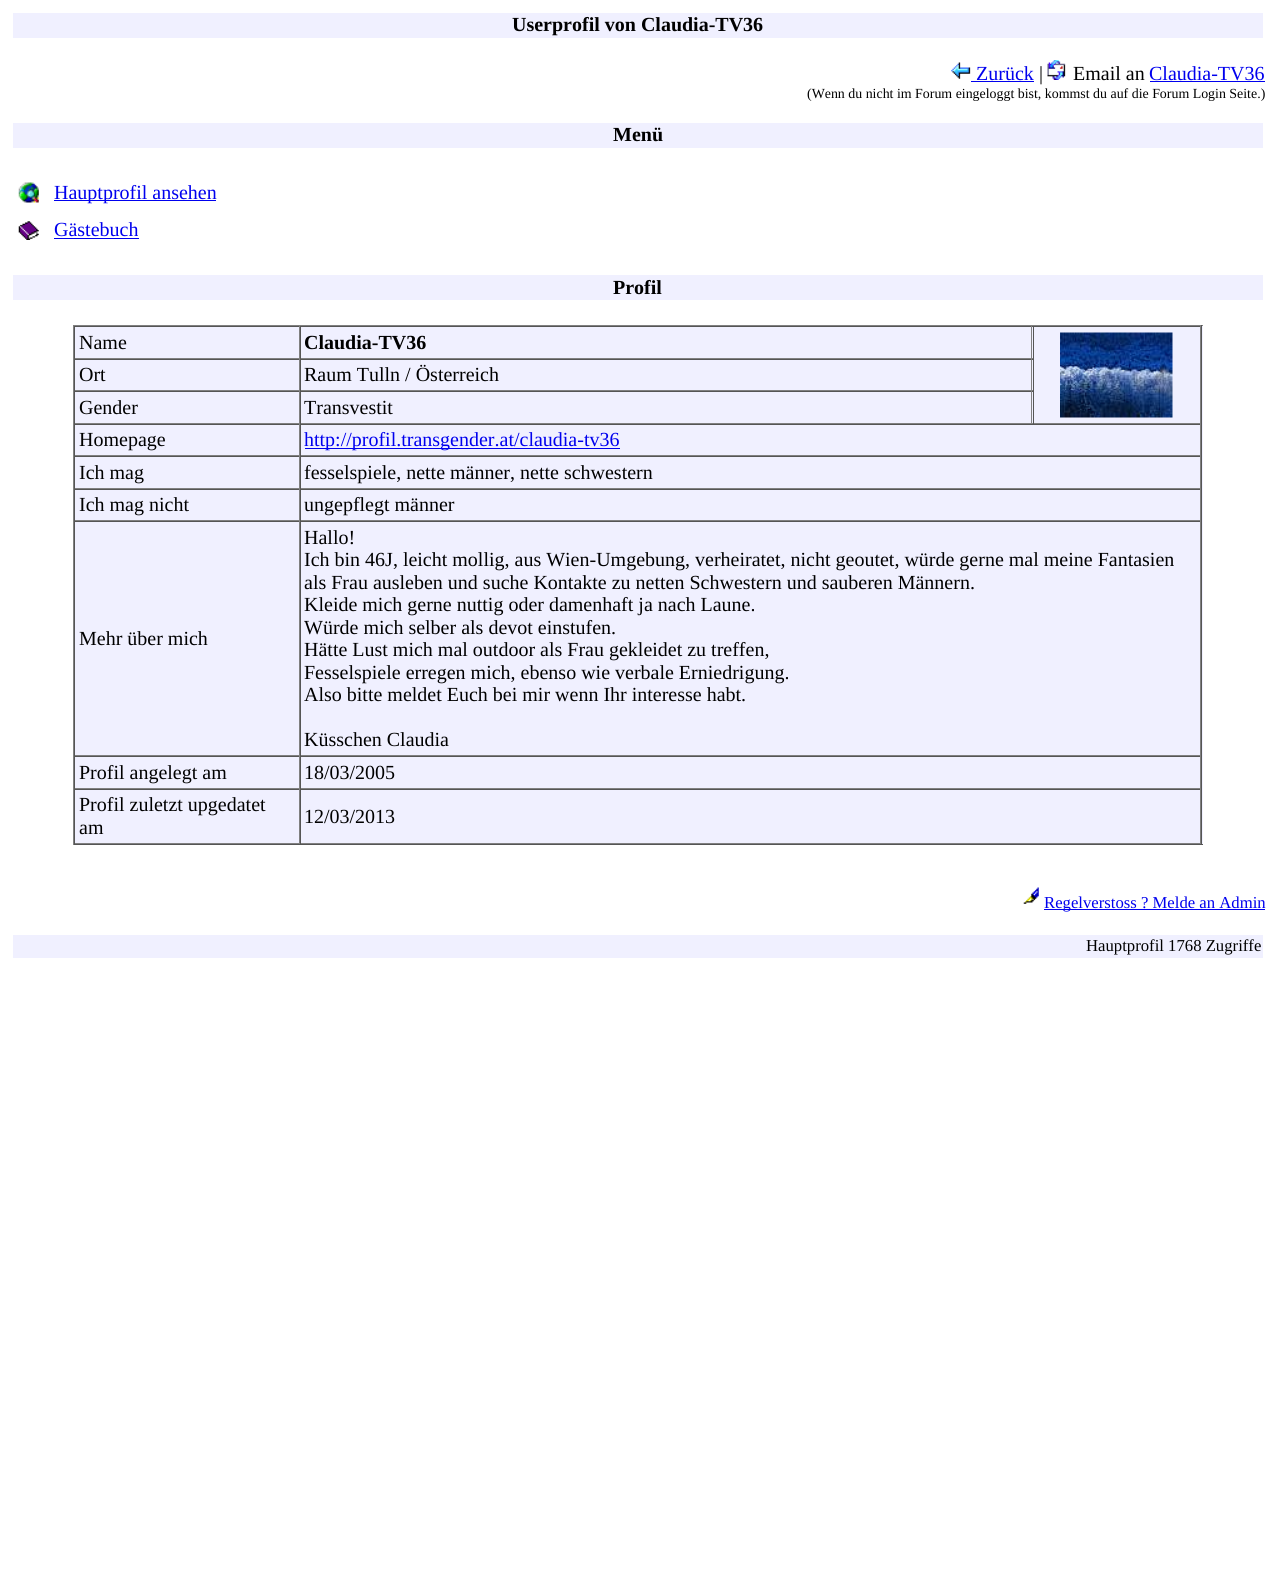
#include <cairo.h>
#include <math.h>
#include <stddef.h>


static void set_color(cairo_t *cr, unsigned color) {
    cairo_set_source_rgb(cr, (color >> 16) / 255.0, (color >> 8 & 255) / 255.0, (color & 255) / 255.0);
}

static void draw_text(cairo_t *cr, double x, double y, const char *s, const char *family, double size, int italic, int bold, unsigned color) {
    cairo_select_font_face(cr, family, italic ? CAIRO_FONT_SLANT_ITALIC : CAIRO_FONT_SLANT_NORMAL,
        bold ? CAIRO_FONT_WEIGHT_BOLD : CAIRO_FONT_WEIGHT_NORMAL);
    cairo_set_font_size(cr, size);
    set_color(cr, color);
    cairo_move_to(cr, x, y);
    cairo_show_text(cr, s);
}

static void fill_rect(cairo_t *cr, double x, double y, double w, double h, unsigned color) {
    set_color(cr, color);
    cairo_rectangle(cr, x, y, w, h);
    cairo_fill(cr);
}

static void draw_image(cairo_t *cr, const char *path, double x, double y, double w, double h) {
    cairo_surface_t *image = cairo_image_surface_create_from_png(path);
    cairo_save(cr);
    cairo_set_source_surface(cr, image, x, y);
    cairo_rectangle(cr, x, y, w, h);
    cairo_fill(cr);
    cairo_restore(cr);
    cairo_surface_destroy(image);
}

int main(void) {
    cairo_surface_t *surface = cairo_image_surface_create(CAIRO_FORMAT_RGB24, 1274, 1593);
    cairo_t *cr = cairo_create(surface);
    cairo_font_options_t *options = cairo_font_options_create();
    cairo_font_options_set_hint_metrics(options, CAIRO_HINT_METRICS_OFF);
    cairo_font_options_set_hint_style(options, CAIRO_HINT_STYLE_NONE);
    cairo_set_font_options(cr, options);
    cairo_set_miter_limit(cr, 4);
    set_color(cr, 0xFFFFFF);
    cairo_paint(cr);
    fill_rect(cr, 13, 13, 1250, 25, 0xF0F0FF);
    draw_text(cr, 512, 31, "Userprofil von Claudia-TV36", "Liberation Serif", 20, 0, 1, 0x000000);
    draw_image(cr, "assets/img1.png", 951, 62, 20, 17);
    draw_text(cr, 976, 80, "Zurück", "Liberation Serif", 20, 0, 0, 0x0000EE);
    fill_rect(cr, 971, 81, 63, 1, 0x0000EE);
    draw_text(cr, 1039, 80, "|", "Liberation Serif", 20, 0, 0, 0x000000);
    draw_image(cr, "assets/img2.png", 1047, 60, 19, 20);
    draw_text(cr, 1073, 80, "Email an", "Liberation Serif", 20, 0, 0, 0x000000);
    draw_text(cr, 1149, 80, "Claudia-TV36", "Liberation Serif", 20, 0, 0, 0x0000EE);
    fill_rect(cr, 1150, 81, 115, 1, 0x0000EE);
    draw_text(cr, 807, 98, "(Wenn du nicht im Forum eingeloggt bist, kommst du auf die Forum Login Seite.)", "Liberation Serif", 13.9, 0, 0, 0x000000);
    fill_rect(cr, 13, 123, 1250, 25, 0xF0F0FF);
    draw_text(cr, 613, 141, "Menü", "Liberation Serif", 20, 0, 1, 0x000000);
    draw_image(cr, "assets/img3.png", 18, 182, 21, 21);
    fill_rect(cr, 54, 200, 162, 1, 0x0000EE);
    draw_text(cr, 54, 199, "Hauptprofil ansehen", "Liberation Serif", 20, 0, 0, 0x0000EE);
    draw_image(cr, "assets/img4.png", 18, 221, 21, 19);
    draw_text(cr, 54, 236, "Gästebuch", "Liberation Serif", 20, 0, 0, 0x0000EE);
    fill_rect(cr, 54, 238, 85, 1, 0x0000EE);
    fill_rect(cr, 13, 275, 1250, 25, 0xF0F0FF);
    draw_text(cr, 613, 294, "Profil", "Liberation Serif", 20, 0, 1, 0x000000);
    fill_rect(cr, 75, 326, 1128, 518, 0xF0F0FF);
    fill_rect(cr, 73, 325, 1130, 1, 0x808080);
    fill_rect(cr, 1201, 325, 1, 520, 0x555555);
    fill_rect(cr, 73, 844, 1130, 1, 0x555555);
    fill_rect(cr, 73, 325, 1, 520, 0x808080);
    fill_rect(cr, 74, 326, 1127, 1, 0x555555);
    fill_rect(cr, 299, 326, 1, 33, 0x808080);
    fill_rect(cr, 74, 358, 226, 1, 0x808080);
    fill_rect(cr, 74, 326, 1, 33, 0x555555);
    draw_text(cr, 79, 349, "Name", "Liberation Serif", 20, 0, 0, 0x000000);
    fill_rect(cr, 1031, 326, 1, 33, 0x808080);
    fill_rect(cr, 300, 358, 733, 1, 0x808080);
    fill_rect(cr, 300, 326, 1, 33, 0x555555);
    draw_text(cr, 304, 349, "Claudia-TV36", "Liberation Serif", 20, 0, 1, 0x000000);
    fill_rect(cr, 1200, 326, 1, 98, 0x808080);
    fill_rect(cr, 1033, 423, 168, 1, 0x808080);
    fill_rect(cr, 1033, 326, 1, 98, 0x555555);
    draw_image(cr, "assets/img5.png", 1060, 332, 113, 86);
    fill_rect(cr, 74, 359, 959, 1, 0x555555);
    fill_rect(cr, 299, 359, 1, 32, 0x808080);
    fill_rect(cr, 74, 390, 226, 1, 0x808080);
    fill_rect(cr, 74, 359, 1, 32, 0x555555);
    draw_text(cr, 79, 381, "Ort", "Liberation Serif", 20, 0, 0, 0x000000);
    fill_rect(cr, 1031, 359, 1, 32, 0x808080);
    fill_rect(cr, 300, 390, 733, 1, 0x808080);
    fill_rect(cr, 300, 359, 1, 32, 0x555555);
    draw_text(cr, 304, 381, "Raum Tulln / Österreich", "Liberation Serif", 20, 0, 0, 0x000000);
    fill_rect(cr, 74, 391, 959, 1, 0x555555);
    fill_rect(cr, 299, 391, 1, 33, 0x808080);
    fill_rect(cr, 74, 423, 226, 1, 0x808080);
    fill_rect(cr, 74, 391, 1, 33, 0x555555);
    draw_text(cr, 79, 414, "Gender", "Liberation Serif", 20, 0, 0, 0x000000);
    fill_rect(cr, 1031, 391, 1, 33, 0x808080);
    fill_rect(cr, 300, 423, 733, 1, 0x808080);
    fill_rect(cr, 300, 391, 1, 33, 0x555555);
    draw_text(cr, 304, 414, "Transvestit", "Liberation Serif", 20, 0, 0, 0x000000);
    fill_rect(cr, 74, 424, 1127, 1, 0x555555);
    fill_rect(cr, 299, 424, 1, 32, 0x808080);
    fill_rect(cr, 74, 455, 226, 1, 0x808080);
    fill_rect(cr, 74, 424, 1, 32, 0x555555);
    draw_text(cr, 79, 446, "Homepage", "Liberation Serif", 20, 0, 0, 0x000000);
    fill_rect(cr, 1200, 424, 1, 32, 0x808080);
    fill_rect(cr, 300, 455, 901, 1, 0x808080);
    fill_rect(cr, 300, 424, 1, 32, 0x555555);
    fill_rect(cr, 305, 448, 315, 1, 0x0000EE);
    draw_text(cr, 304, 446, "http://profil.transgender.at/claudia-tv36", "Liberation Serif", 20, 0, 0, 0x0000EE);
    fill_rect(cr, 74, 456, 1127, 1, 0x555555);
    fill_rect(cr, 299, 456, 1, 33, 0x808080);
    fill_rect(cr, 74, 488, 226, 1, 0x808080);
    fill_rect(cr, 74, 456, 1, 33, 0x555555);
    draw_text(cr, 79, 479, "Ich mag", "Liberation Serif", 20, 0, 0, 0x000000);
    fill_rect(cr, 1200, 456, 1, 33, 0x808080);
    fill_rect(cr, 300, 488, 901, 1, 0x808080);
    fill_rect(cr, 300, 456, 1, 33, 0x555555);
    draw_text(cr, 304, 479, "fesselspiele, nette männer, nette schwestern", "Liberation Serif", 20, 0, 0, 0x000000);
    fill_rect(cr, 74, 489, 1127, 1, 0x555555);
    fill_rect(cr, 299, 489, 1, 32, 0x808080);
    fill_rect(cr, 74, 520, 226, 1, 0x808080);
    fill_rect(cr, 74, 489, 1, 32, 0x555555);
    draw_text(cr, 79, 511, "Ich mag nicht", "Liberation Serif", 20, 0, 0, 0x000000);
    fill_rect(cr, 1200, 489, 1, 32, 0x808080);
    fill_rect(cr, 300, 520, 901, 1, 0x808080);
    fill_rect(cr, 300, 489, 1, 32, 0x555555);
    draw_text(cr, 304, 511, "ungepflegt männer", "Liberation Serif", 20, 0, 0, 0x000000);
    fill_rect(cr, 74, 521, 1127, 1, 0x555555);
    fill_rect(cr, 299, 521, 1, 235, 0x808080);
    fill_rect(cr, 74, 755, 226, 1, 0x808080);
    fill_rect(cr, 74, 521, 1, 235, 0x555555);
    draw_text(cr, 79, 645, "Mehr über mich", "Liberation Serif", 20, 0, 0, 0x000000);
    fill_rect(cr, 1200, 521, 1, 235, 0x808080);
    fill_rect(cr, 300, 755, 901, 1, 0x808080);
    fill_rect(cr, 300, 521, 1, 235, 0x555555);
    draw_text(cr, 304, 544, "Hallo!", "Liberation Serif", 20, 0, 0, 0x000000);
    draw_text(cr, 304, 566, "Ich bin 46J, leicht mollig, aus Wien-Umgebung, verheiratet, nicht geoutet, würde gerne mal meine Fantasien", "Liberation Serif", 20, 0, 0, 0x000000);
    draw_text(cr, 304, 589, "als Frau ausleben und suche Kontakte zu netten Schwestern und sauberen Männern.", "Liberation Serif", 20, 0, 0, 0x000000);
    draw_text(cr, 304, 611, "Kleide mich gerne nuttig oder damenhaft ja nach Laune.", "Liberation Serif", 20, 0, 0, 0x000000);
    draw_text(cr, 304, 634, "Würde mich selber als devot einstufen.", "Liberation Serif", 20, 0, 0, 0x000000);
    draw_text(cr, 304, 656, "Hätte Lust mich mal outdoor als Frau gekleidet zu treffen,", "Liberation Serif", 20, 0, 0, 0x000000);
    draw_text(cr, 304, 679, "Fesselspiele erregen mich, ebenso wie verbale Erniedrigung.", "Liberation Serif", 20, 0, 0, 0x000000);
    draw_text(cr, 304, 701, "Also bitte meldet Euch bei mir wenn Ihr interesse habt.", "Liberation Serif", 20, 0, 0, 0x000000);
    draw_text(cr, 304, 746, "Küsschen Claudia", "Liberation Serif", 20, 0, 0, 0x000000);
    fill_rect(cr, 74, 756, 1127, 1, 0x555555);
    fill_rect(cr, 299, 756, 1, 33, 0x808080);
    fill_rect(cr, 74, 788, 226, 1, 0x808080);
    fill_rect(cr, 74, 756, 1, 33, 0x555555);
    draw_text(cr, 79, 779, "Profil angelegt am", "Liberation Serif", 20, 0, 0, 0x000000);
    fill_rect(cr, 1200, 756, 1, 33, 0x808080);
    fill_rect(cr, 300, 788, 901, 1, 0x808080);
    fill_rect(cr, 300, 756, 1, 33, 0x555555);
    draw_text(cr, 304, 779, "18/03/2005", "Liberation Serif", 20, 0, 0, 0x000000);
    fill_rect(cr, 74, 789, 1127, 1, 0x555555);
    fill_rect(cr, 299, 789, 1, 55, 0x808080);
    fill_rect(cr, 74, 843, 226, 1, 0x808080);
    fill_rect(cr, 74, 789, 1, 55, 0x555555);
    draw_text(cr, 79, 811, "Profil zuletzt upgedatet", "Liberation Serif", 20, 0, 0, 0x000000);
    draw_text(cr, 79, 834, "am", "Liberation Serif", 20, 0, 0, 0x000000);
    fill_rect(cr, 1200, 789, 1, 55, 0x808080);
    fill_rect(cr, 300, 843, 901, 1, 0x808080);
    fill_rect(cr, 300, 789, 1, 55, 0x555555);
    draw_text(cr, 304, 823, "12/03/2013", "Liberation Serif", 20, 0, 0, 0x000000);
    draw_image(cr, "assets/img6.png", 1023, 887, 16, 17);
    fill_rect(cr, 1044, 909, 221, 1, 0x0000EE);
    draw_text(cr, 1044, 908, "Regelverstoss ? Melde an Admin", "Liberation Serif", 16.7, 0, 0, 0x0000EE);
    fill_rect(cr, 13, 935, 1250, 23, 0xF0F0FF);
    draw_text(cr, 1086, 951, "Hauptprofil 1768 Zugriffe", "Liberation Serif", 16.7, 0, 0, 0x000000);
    cairo_surface_write_to_png(surface, "output.png");
    cairo_font_options_destroy(options);
    cairo_destroy(cr);
    cairo_surface_destroy(surface);
    return 0;
}
